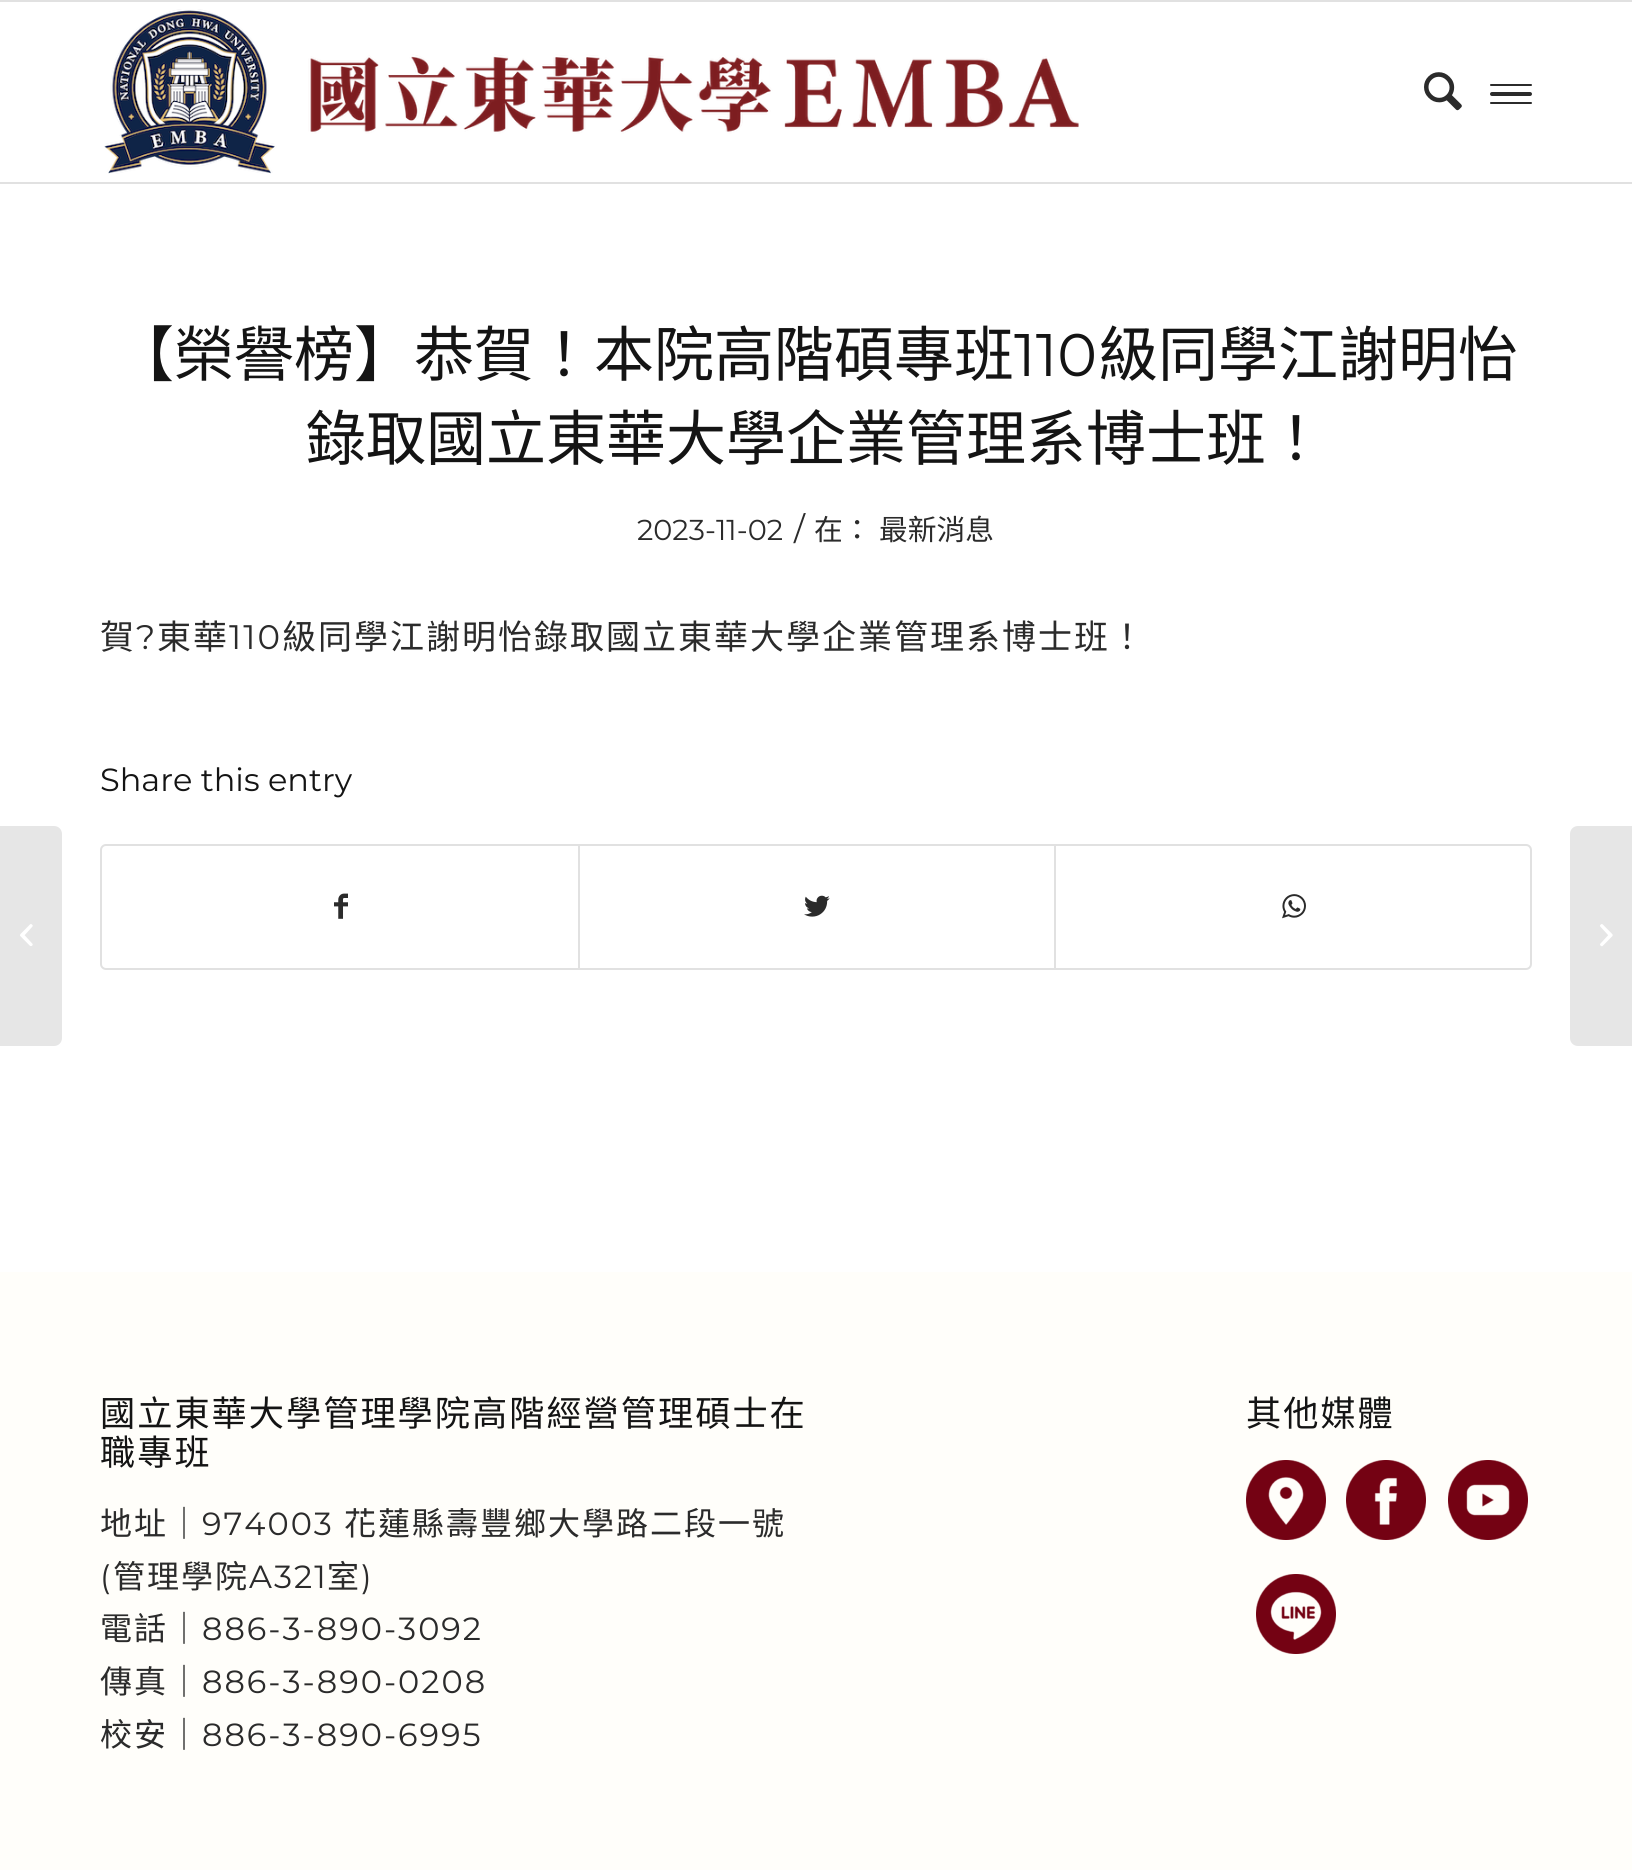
#include <cairo.h>
#include <math.h>
#include <stddef.h>


static void set_color(cairo_t *cr, unsigned color) {
    cairo_set_source_rgb(cr, (color >> 16) / 255.0, (color >> 8 & 255) / 255.0, (color & 255) / 255.0);
}

static void draw_text(cairo_t *cr, double x, double y, const char *s, const char *family, double size, int italic, int bold, unsigned color) {
    cairo_select_font_face(cr, family, italic ? CAIRO_FONT_SLANT_ITALIC : CAIRO_FONT_SLANT_NORMAL,
        bold ? CAIRO_FONT_WEIGHT_BOLD : CAIRO_FONT_WEIGHT_NORMAL);
    cairo_set_font_size(cr, size);
    set_color(cr, color);
    cairo_move_to(cr, x, y);
    cairo_show_text(cr, s);
}

static void draw_spaced(cairo_t *cr, double x, double y, const char *s, double letter, double word) {
    cairo_move_to(cr, x, y);
    while (*s) {
        char ch[5] = {0};
        int n = 0;
        do ch[n++] = *s++; while ((*s & 0xC0) == 0x80);
        cairo_show_text(cr, ch);
        cairo_rel_move_to(cr, letter + word * (*ch == ' '), 0);
    }
}

static void fill_rect(cairo_t *cr, double x, double y, double w, double h, unsigned color) {
    set_color(cr, color);
    cairo_rectangle(cr, x, y, w, h);
    cairo_fill(cr);
}

static void rounded_rect(cairo_t *cr, double x, double y, double w, double h, double r) {
    cairo_new_sub_path(cr);
    cairo_arc(cr, x + w - r, y + h - r, r, 0, M_PI / 2);
    cairo_arc(cr, x + r, y + h - r, r, M_PI / 2, M_PI);
    cairo_arc(cr, x + r, y + r, r, M_PI, 1.5 * M_PI);
    cairo_arc(cr, x + w - r, y + r, r, 1.5 * M_PI, 2 * M_PI);
    cairo_close_path(cr);
}

static void draw_image(cairo_t *cr, const char *path, double x, double y, double w, double h) {
    cairo_surface_t *image = cairo_image_surface_create_from_png(path);
    cairo_save(cr);
    cairo_set_source_surface(cr, image, x, y);
    cairo_rectangle(cr, x, y, w, h);
    cairo_fill(cr);
    cairo_restore(cr);
    cairo_surface_destroy(image);
}

int main(void) {
    cairo_surface_t *surface = cairo_image_surface_create(CAIRO_FORMAT_RGB24, 1632, 1870);
    cairo_t *cr = cairo_create(surface);
    cairo_font_options_t *options = cairo_font_options_create();
    cairo_font_options_set_hint_metrics(options, CAIRO_HINT_METRICS_OFF);
    cairo_font_options_set_hint_style(options, CAIRO_HINT_STYLE_NONE);
    cairo_set_font_options(cr, options);
    cairo_set_miter_limit(cr, 4);
    set_color(cr, 0xFFFFFF);
    cairo_paint(cr);
    fill_rect(cr, 0, 0, 1632, 2, 0xE1E1E1);
    fill_rect(cr, 0, 182, 1632, 2, 0xE1E1E1);
    draw_image(cr, "assets/img1.png", 104, 9, 975, 165);
    draw_image(cr, "assets/img2.png", 1424, 72, 38, 39);
    set_color(cr, 0x2B2B2B);
    rounded_rect(cr, 1490, 92, 42, 4, 2);
    cairo_fill(cr);
    rounded_rect(cr, 1490, 84, 42, 2, 1);
    cairo_fill(cr);
    rounded_rect(cr, 1490, 102, 42, 2, 1);
    cairo_fill(cr);
    set_color(cr, 0xE6E6E6);
    cairo_new_path(cr);
    cairo_move_to(cr, 0, 826);
    cairo_line_to(cr, 54, 826);
    cairo_curve_to(cr, 58.5, 826, 62, 829.5, 62, 834);
    cairo_line_to(cr, 62, 1038);
    cairo_curve_to(cr, 62, 1042.5, 58.5, 1046, 54, 1046);
    cairo_line_to(cr, 0, 1046);
    cairo_close_path(cr);
    cairo_fill(cr);
    draw_image(cr, "assets/img3.png", 20, 924, 13, 22);
    draw_text(cr, 114, 376, "【榮譽榜】恭賀！本院高階碩專班", "Noto Sans CJK TC", 60, 0, 0, 0x141414);
    draw_text(cr, 1014, 376, "110", "Montserrat Thin", 60, 0, 0, 0x141414);
    draw_text(cr, 1098, 376, "級同學江謝明怡", "Noto Sans CJK TC", 60, 0, 0, 0x141414);
    draw_text(cr, 306, 460, "錄取國立東華大學企業管理系博士班！", "Noto Sans CJK TC", 60, 0, 0, 0x141414);
    draw_text(cr, 637, 540, "2023-11-02", "Montserrat Thin", 28.75, 0, 0, 0x2B2B2B);
    draw_text(cr, 794, 540, "/", "Montserrat Thin", 32, 0, 0, 0x2B2B2B);
    draw_text(cr, 814, 540, "在：", "Noto Sans CJK TC", 28.75, 0, 0, 0x2B2B2B);
    draw_text(cr, 879, 540, "最新消息", "Noto Sans CJK TC", 28.75, 0, 0, 0x2B2B2B);
    cairo_set_font_size(cr, 34);
    draw_spaced(cr, 100, 649, "賀", 2, 0);
    cairo_select_font_face(cr, "Montserrat Thin", CAIRO_FONT_SLANT_NORMAL, CAIRO_FONT_WEIGHT_NORMAL);
    draw_spaced(cr, 136, 649, "?", 2, 0);
    cairo_select_font_face(cr, "Noto Sans CJK TC", CAIRO_FONT_SLANT_NORMAL, CAIRO_FONT_WEIGHT_NORMAL);
    draw_spaced(cr, 157, 649, "東華", 2, 0);
    cairo_select_font_face(cr, "Montserrat Thin", CAIRO_FONT_SLANT_NORMAL, CAIRO_FONT_WEIGHT_NORMAL);
    draw_spaced(cr, 229, 649, "110", 2, 0);
    cairo_select_font_face(cr, "Noto Sans CJK TC", CAIRO_FONT_SLANT_NORMAL, CAIRO_FONT_WEIGHT_NORMAL);
    draw_spaced(cr, 282, 649, "級同學江謝明怡錄取國立東華大學企業管理系博士班！", 2, 0);
    draw_text(cr, 100, 791, "Share this entry", "Montserrat Thin", 32, 0, 0, 0x141414);
    rounded_rect(cr, 101, 845, 1430, 124, 5);
    set_color(cr, 0xE1E1E1);
    cairo_stroke(cr);
    draw_image(cr, "assets/img4.png", 334, 893, 14, 26);
    fill_rect(cr, 578, 846, 2, 122, 0xE1E1E1);
    draw_image(cr, "assets/img5.png", 804, 895, 26, 22);
    fill_rect(cr, 1054, 846, 2, 122, 0xE1E1E1);
    draw_image(cr, "assets/img6.png", 1282, 894, 24, 25);
    fill_rect(cr, 0, 1272, 1632, 598, 0xFFFEFA);
    cairo_select_font_face(cr, "Noto Sans CJK TC", CAIRO_FONT_SLANT_NORMAL, CAIRO_FONT_WEIGHT_NORMAL);
    cairo_set_font_size(cr, 35.2);
    set_color(cr, 0x141414);
    draw_spaced(cr, 100, 1426, "國立東華大學管理學院高階經營管理碩士在", 2, 0);
    draw_spaced(cr, 100, 1465, "職專班", 2, 0);
    cairo_set_font_size(cr, 32);
    set_color(cr, 0x2B2B2B);
    draw_spaced(cr, 100, 1535, "地址｜", 2, 0);
    cairo_select_font_face(cr, "Montserrat Thin", CAIRO_FONT_SLANT_NORMAL, CAIRO_FONT_WEIGHT_NORMAL);
    draw_spaced(cr, 202, 1535, "974003", 2, 0);
    cairo_select_font_face(cr, "Noto Sans CJK TC", CAIRO_FONT_SLANT_NORMAL, CAIRO_FONT_WEIGHT_NORMAL);
    draw_spaced(cr, 344, 1535, "花蓮縣壽豐鄉大學路二段一號", 2, 0);
    cairo_select_font_face(cr, "Montserrat Thin", CAIRO_FONT_SLANT_NORMAL, CAIRO_FONT_WEIGHT_NORMAL);
    draw_spaced(cr, 100, 1588, "(", 2, 0);
    cairo_select_font_face(cr, "Noto Sans CJK TC", CAIRO_FONT_SLANT_NORMAL, CAIRO_FONT_WEIGHT_NORMAL);
    draw_spaced(cr, 113, 1588, "管理學院", 2, 0);
    cairo_select_font_face(cr, "Montserrat Thin", CAIRO_FONT_SLANT_NORMAL, CAIRO_FONT_WEIGHT_NORMAL);
    draw_spaced(cr, 249, 1588, "A321", 2, 0);
    cairo_select_font_face(cr, "Noto Sans CJK TC", CAIRO_FONT_SLANT_NORMAL, CAIRO_FONT_WEIGHT_NORMAL);
    draw_spaced(cr, 327, 1588, "室", 2, 0);
    cairo_select_font_face(cr, "Montserrat Thin", CAIRO_FONT_SLANT_NORMAL, CAIRO_FONT_WEIGHT_NORMAL);
    draw_spaced(cr, 361, 1588, ")", 2, 0);
    cairo_select_font_face(cr, "Noto Sans CJK TC", CAIRO_FONT_SLANT_NORMAL, CAIRO_FONT_WEIGHT_NORMAL);
    draw_spaced(cr, 100, 1640, "電話｜", 2, 0);
    cairo_select_font_face(cr, "Montserrat Thin", CAIRO_FONT_SLANT_NORMAL, CAIRO_FONT_WEIGHT_NORMAL);
    draw_spaced(cr, 202, 1640, "886-3-890-3092", 2, 0);
    cairo_select_font_face(cr, "Noto Sans CJK TC", CAIRO_FONT_SLANT_NORMAL, CAIRO_FONT_WEIGHT_NORMAL);
    draw_spaced(cr, 100, 1693, "傳真｜", 2, 0);
    cairo_select_font_face(cr, "Montserrat Thin", CAIRO_FONT_SLANT_NORMAL, CAIRO_FONT_WEIGHT_NORMAL);
    draw_spaced(cr, 202, 1693, "886-3-890-0208", 2, 0);
    cairo_select_font_face(cr, "Noto Sans CJK TC", CAIRO_FONT_SLANT_NORMAL, CAIRO_FONT_WEIGHT_NORMAL);
    draw_spaced(cr, 100, 1746, "校安｜", 2, 0);
    cairo_select_font_face(cr, "Montserrat Thin", CAIRO_FONT_SLANT_NORMAL, CAIRO_FONT_WEIGHT_NORMAL);
    draw_spaced(cr, 202, 1746, "886-3-890-6995", 2, 0);
    cairo_select_font_face(cr, "Noto Sans CJK TC", CAIRO_FONT_SLANT_NORMAL, CAIRO_FONT_WEIGHT_NORMAL);
    cairo_set_font_size(cr, 35.2);
    set_color(cr, 0x141414);
    draw_spaced(cr, 1246, 1426, "其他媒體", 2, 0);
    draw_image(cr, "assets/img7.png", 1246, 1460, 80, 80);
    draw_image(cr, "assets/img8.png", 1346, 1460, 80, 80);
    draw_image(cr, "assets/img9.png", 1448, 1460, 80, 80);
    draw_image(cr, "assets/img10.png", 1256, 1574, 80, 80);
    set_color(cr, 0xE6E6E6);
    cairo_new_path(cr);
    cairo_move_to(cr, 1578, 826);
    cairo_line_to(cr, 1632, 826);
    cairo_line_to(cr, 1632, 1046);
    cairo_line_to(cr, 1578, 1046);
    cairo_curve_to(cr, 1573.5, 1046, 1570, 1042.5, 1570, 1038);
    cairo_line_to(cr, 1570, 834);
    cairo_curve_to(cr, 1570, 829.5, 1573.5, 826, 1578, 826);
    cairo_close_path(cr);
    cairo_fill(cr);
    draw_image(cr, "assets/img11.png", 1600, 924, 13, 23);
    cairo_surface_write_to_png(surface, "output.png");
    cairo_font_options_destroy(options);
    cairo_destroy(cr);
    cairo_surface_destroy(surface);
    return 0;
}
